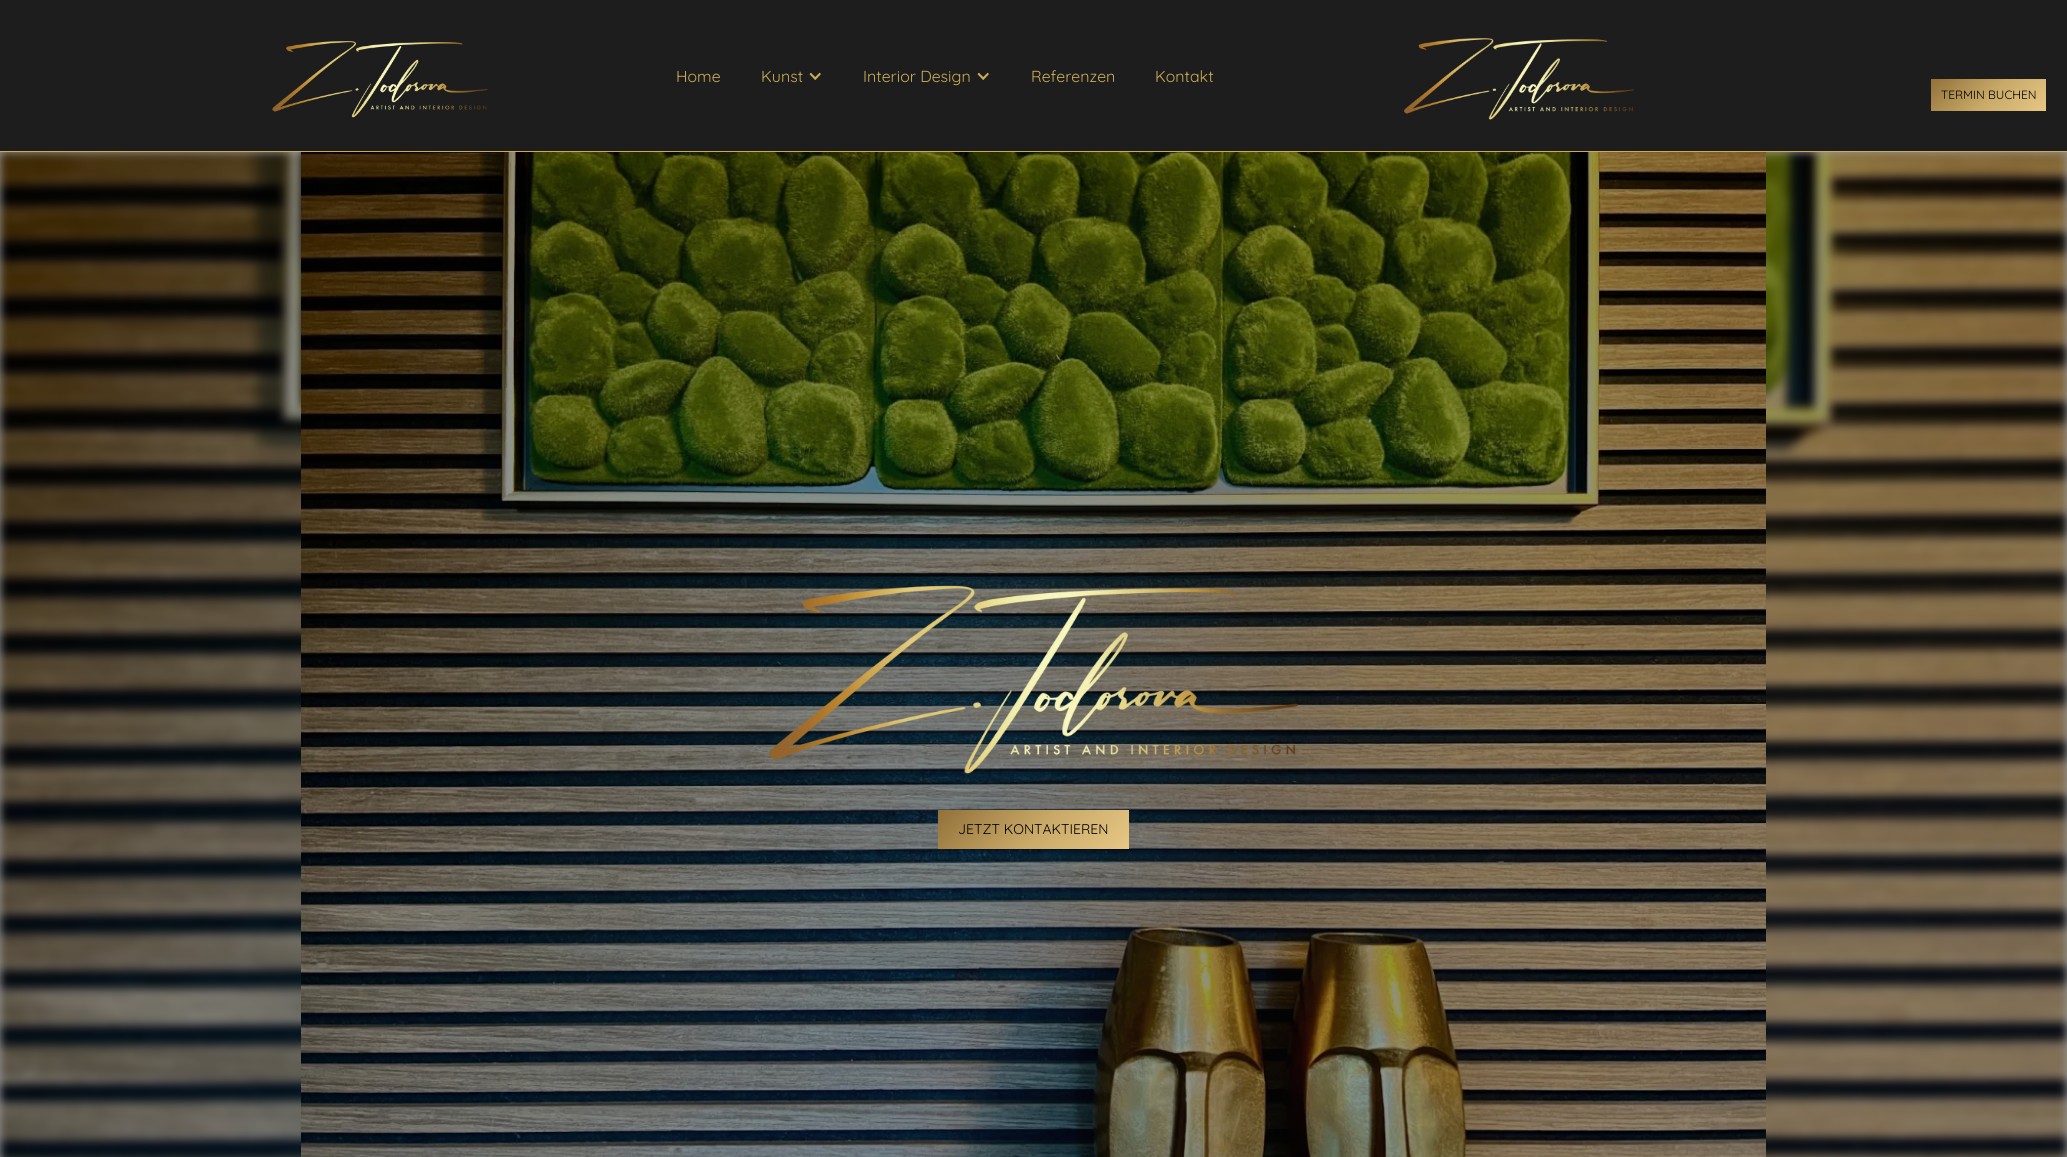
#include <cairo.h>
#include <math.h>
#include <stddef.h>


static void set_color(cairo_t *cr, unsigned color) {
    cairo_set_source_rgb(cr, (color >> 16) / 255.0, (color >> 8 & 255) / 255.0, (color & 255) / 255.0);
}

static void draw_text(cairo_t *cr, double x, double y, const char *s, const char *family, double size, int italic, int bold, unsigned color) {
    cairo_select_font_face(cr, family, italic ? CAIRO_FONT_SLANT_ITALIC : CAIRO_FONT_SLANT_NORMAL,
        bold ? CAIRO_FONT_WEIGHT_BOLD : CAIRO_FONT_WEIGHT_NORMAL);
    cairo_set_font_size(cr, size);
    set_color(cr, color);
    cairo_move_to(cr, x, y);
    cairo_show_text(cr, s);
}

static void fill_rect(cairo_t *cr, double x, double y, double w, double h, unsigned color) {
    set_color(cr, color);
    cairo_rectangle(cr, x, y, w, h);
    cairo_fill(cr);
}

static void draw_image(cairo_t *cr, const char *path, double x, double y, double w, double h) {
    cairo_surface_t *image = cairo_image_surface_create_from_png(path);
    cairo_save(cr);
    cairo_set_source_surface(cr, image, x, y);
    cairo_rectangle(cr, x, y, w, h);
    cairo_fill(cr);
    cairo_restore(cr);
    cairo_surface_destroy(image);
}

int main(void) {
    cairo_surface_t *surface = cairo_image_surface_create(CAIRO_FORMAT_RGB24, 2067, 1157);
    cairo_t *cr = cairo_create(surface);
    cairo_font_options_t *options = cairo_font_options_create();
    cairo_font_options_set_hint_metrics(options, CAIRO_HINT_METRICS_OFF);
    cairo_font_options_set_hint_style(options, CAIRO_HINT_STYLE_NONE);
    cairo_set_font_options(cr, options);
    cairo_set_miter_limit(cr, 4);
    cairo_pattern_t *gradient;
    set_color(cr, 0x999999);
    cairo_paint(cr);
    fill_rect(cr, 0, 0, 2067, 151, 0x1D1D1D);
    fill_rect(cr, 0, 151, 2067, 1, 0xCBAB58);
    draw_image(cr, "assets/img1.png", 272, 41, 216, 77);
    draw_text(cr, 676, 82, "Home", "Quicksand", 16, 0, 0, 0xCBAB58);
    draw_text(cr, 761, 82, "Kunst", "Quicksand", 16, 0, 0, 0xCBAB58);
    draw_image(cr, "assets/img2.png", 809, 72, 12, 9);
    draw_text(cr, 863, 82, "Interior Design", "Quicksand", 16, 0, 0, 0xCBAB58);
    draw_image(cr, "assets/img2.png", 977, 72, 12, 9);
    draw_text(cr, 1031, 82, "Referenzen", "Quicksand", 16, 0, 0, 0xCBAB58);
    draw_text(cr, 1155, 82, "Kontakt", "Quicksand", 16, 0, 0, 0xCBAB58);
    draw_image(cr, "assets/img3.png", 1404, 38, 230, 82);
    gradient = cairo_pattern_create_linear(1952, 58, 2025, 132);
    cairo_pattern_add_color_stop_rgba(gradient, 0, 0.573, 0.443, 0.227, 1);
    cairo_pattern_add_color_stop_rgba(gradient, 0.52, 0.788, 0.663, 0.404, 1);
    cairo_pattern_add_color_stop_rgba(gradient, 1, 0.906, 0.78, 0.518, 1);
    cairo_set_source(cr, gradient);
    cairo_pattern_destroy(gradient);
    cairo_rectangle(cr, 1931, 79, 115, 32);
    cairo_fill(cr);
    draw_text(cr, 1941, 99, "TERMIN BUCHEN", "Quicksand", 12, 0, 0, 0x000000);
    draw_image(cr, "assets/img4.png", 0, 152, 2067, 1005);
    draw_image(cr, "assets/img5.png", 301, 152, 1465, 1005);
    gradient = cairo_pattern_create_radial(1034, 702, 0, 1034, 702, 1171);
    cairo_pattern_add_color_stop_rgba(gradient, 0, 0.345, 0.345, 0.345, 0.05);
    cairo_pattern_add_color_stop_rgba(gradient, 1, 0.345, 0.345, 0.345, 0);
    cairo_set_source(cr, gradient);
    cairo_pattern_destroy(gradient);
    cairo_rectangle(cr, 529, 197, 1010, 960);
    cairo_fill(cr);
    draw_image(cr, "assets/img6.png", 769, 585, 529, 189);
    gradient = cairo_pattern_create_linear(976, 772, 1091, 887);
    cairo_pattern_add_color_stop_rgba(gradient, 0, 0.573, 0.443, 0.227, 1);
    cairo_pattern_add_color_stop_rgba(gradient, 0.52, 0.788, 0.663, 0.404, 1);
    cairo_pattern_add_color_stop_rgba(gradient, 1, 0.906, 0.78, 0.518, 1);
    cairo_set_source(cr, gradient);
    cairo_pattern_destroy(gradient);
    cairo_rectangle(cr, 938, 810, 191, 39);
    cairo_fill(cr);
    draw_text(cr, 958, 834, "JETZT KONTAKTIEREN", "Quicksand", 14, 0, 0, 0x000000);
    cairo_surface_write_to_png(surface, "output.png");
    cairo_font_options_destroy(options);
    cairo_destroy(cr);
    cairo_surface_destroy(surface);
    return 0;
}
